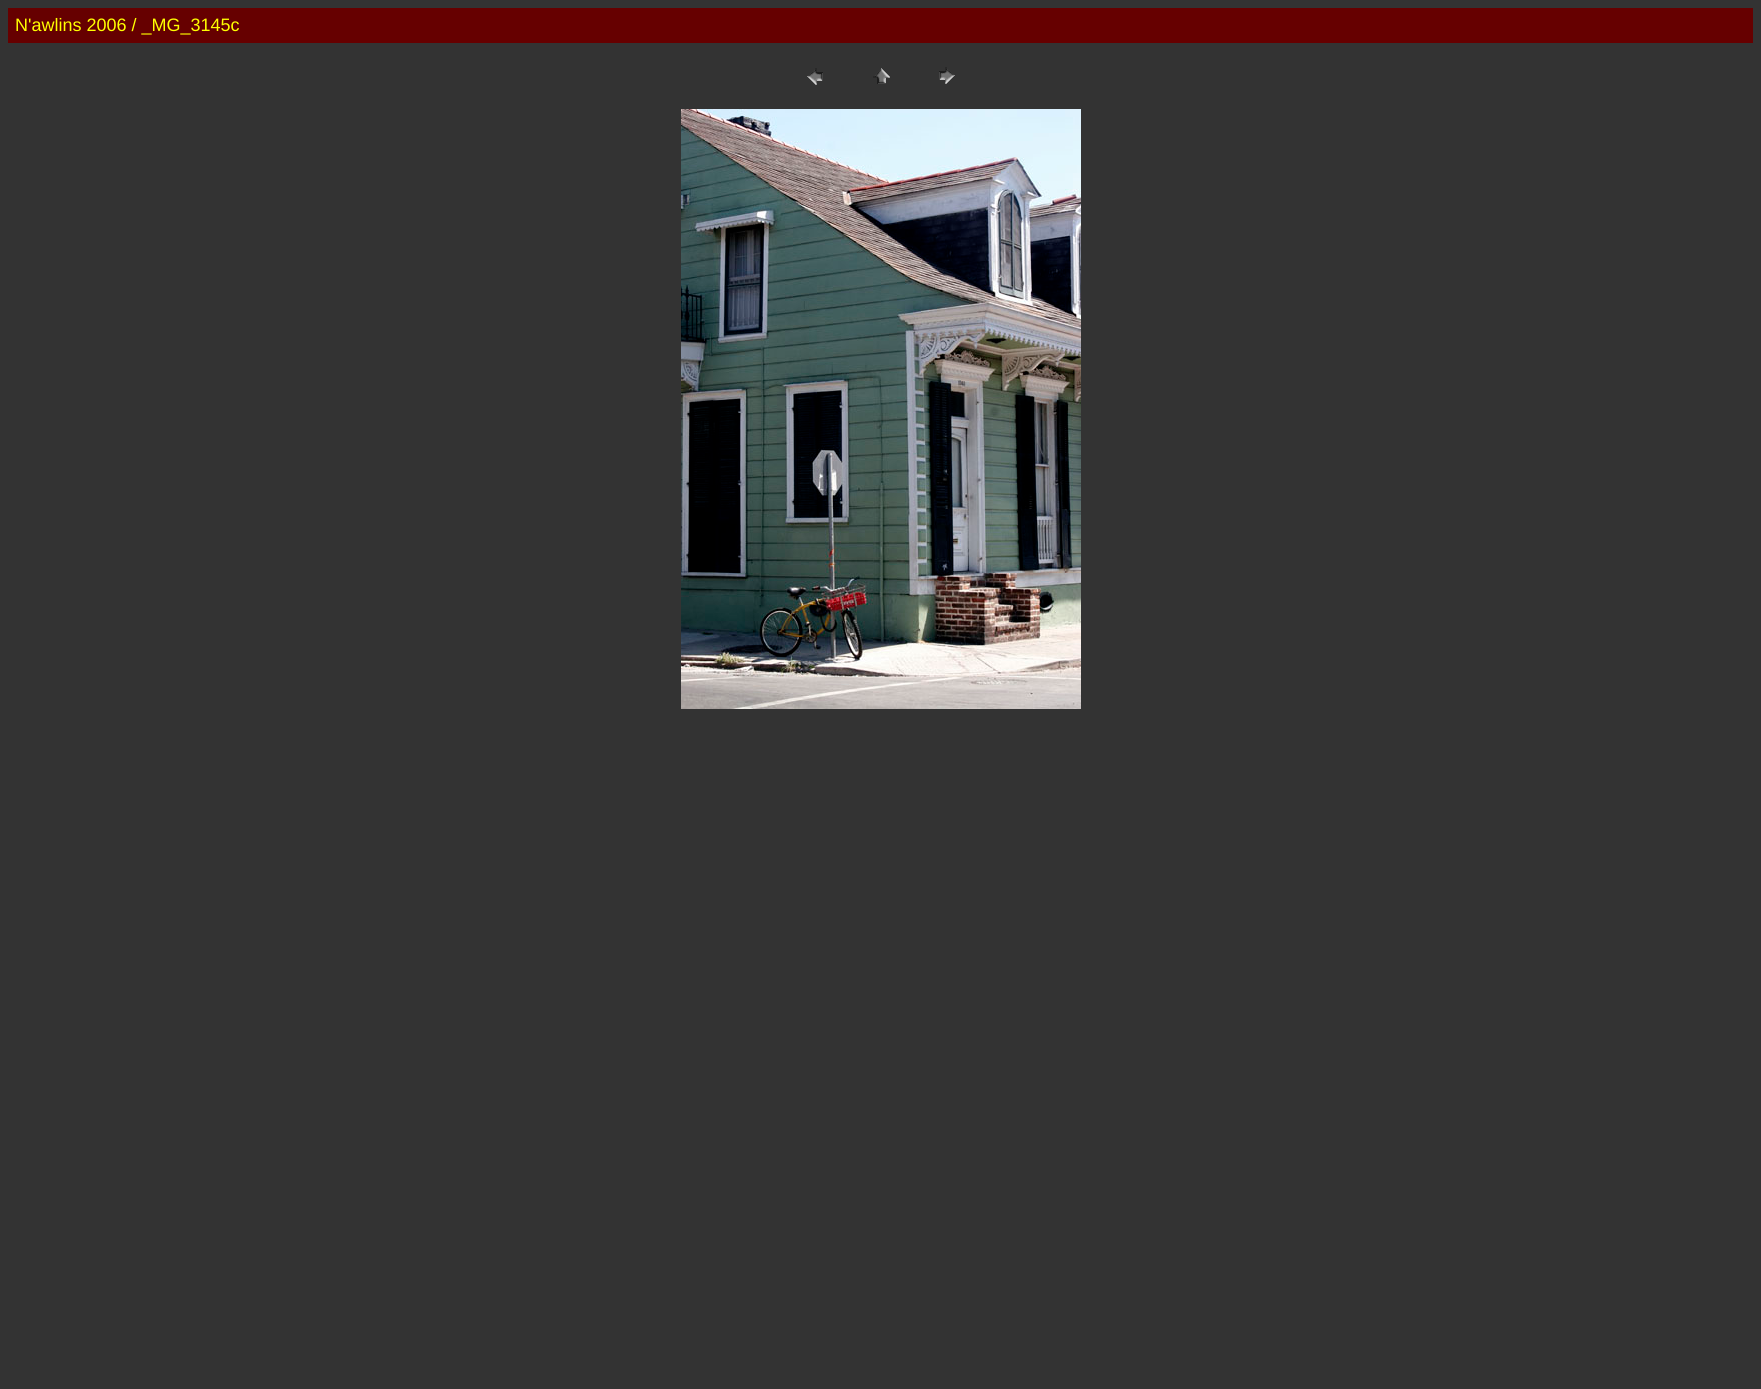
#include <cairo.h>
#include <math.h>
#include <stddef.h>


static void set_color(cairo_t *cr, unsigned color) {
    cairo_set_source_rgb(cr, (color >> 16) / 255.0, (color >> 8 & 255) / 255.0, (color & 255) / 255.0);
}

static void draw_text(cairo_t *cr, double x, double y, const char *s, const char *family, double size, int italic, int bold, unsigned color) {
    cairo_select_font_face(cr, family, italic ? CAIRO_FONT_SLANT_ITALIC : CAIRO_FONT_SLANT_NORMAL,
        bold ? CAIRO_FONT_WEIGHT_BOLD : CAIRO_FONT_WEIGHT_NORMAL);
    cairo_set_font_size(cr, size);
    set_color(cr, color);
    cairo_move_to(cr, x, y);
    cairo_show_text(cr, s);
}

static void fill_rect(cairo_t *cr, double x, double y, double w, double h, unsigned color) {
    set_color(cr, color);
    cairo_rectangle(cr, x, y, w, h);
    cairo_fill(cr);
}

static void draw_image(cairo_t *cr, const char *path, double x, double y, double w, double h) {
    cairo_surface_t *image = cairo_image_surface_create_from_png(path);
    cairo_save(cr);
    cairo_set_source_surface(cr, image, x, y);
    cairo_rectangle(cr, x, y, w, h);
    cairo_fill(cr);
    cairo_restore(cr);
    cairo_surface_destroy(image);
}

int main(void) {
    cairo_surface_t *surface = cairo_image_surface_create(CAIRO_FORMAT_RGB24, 1761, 1389);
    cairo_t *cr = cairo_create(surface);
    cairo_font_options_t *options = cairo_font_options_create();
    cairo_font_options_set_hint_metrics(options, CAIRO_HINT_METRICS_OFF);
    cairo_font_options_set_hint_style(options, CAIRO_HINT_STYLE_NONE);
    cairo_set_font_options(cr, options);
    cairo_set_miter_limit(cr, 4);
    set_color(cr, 0x333333);
    cairo_paint(cr);
    fill_rect(cr, 8, 8, 1745, 35, 0x660000);
    draw_text(cr, 15, 31, "N'awlins 2006 / _MG_3145c", "Liberation Sans", 18, 0, 0, 0xFFFF00);
    draw_image(cr, "assets/img1.png", 807, 68, 16, 17);
    draw_image(cr, "assets/img2.png", 873, 68, 17, 16);
    draw_image(cr, "assets/img3.png", 939, 67, 16, 17);
    draw_image(cr, "assets/img4.png", 681, 109, 400, 600);
    cairo_surface_write_to_png(surface, "output.png");
    cairo_font_options_destroy(options);
    cairo_destroy(cr);
    cairo_surface_destroy(surface);
    return 0;
}
